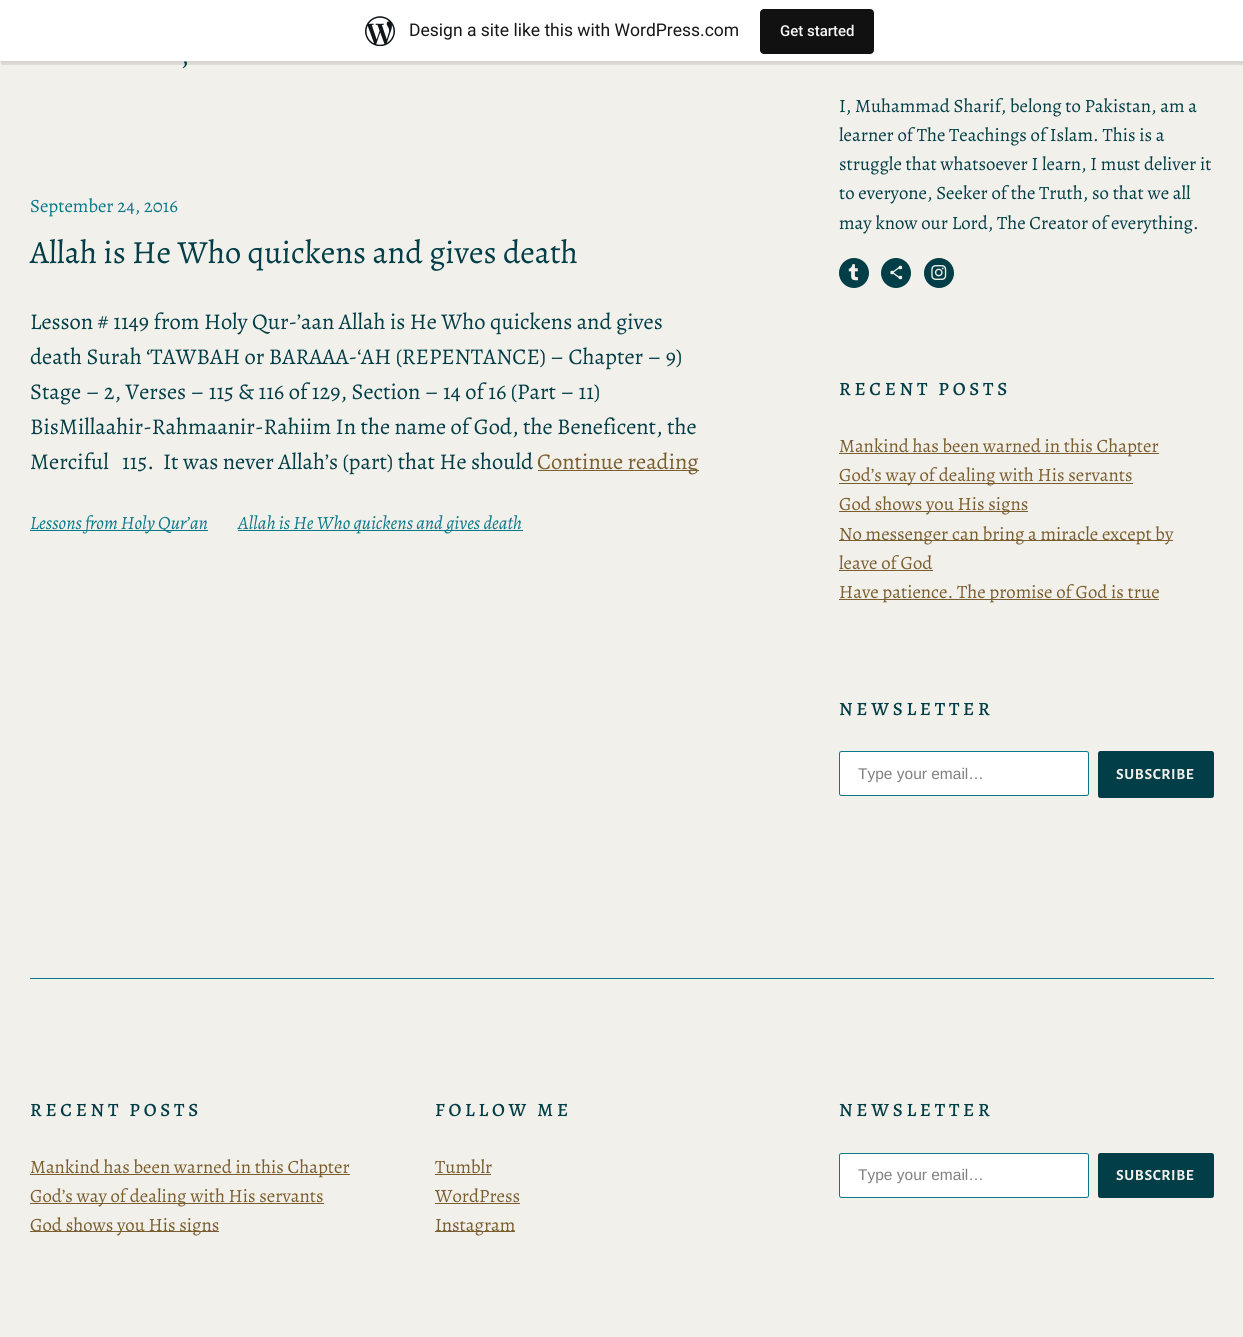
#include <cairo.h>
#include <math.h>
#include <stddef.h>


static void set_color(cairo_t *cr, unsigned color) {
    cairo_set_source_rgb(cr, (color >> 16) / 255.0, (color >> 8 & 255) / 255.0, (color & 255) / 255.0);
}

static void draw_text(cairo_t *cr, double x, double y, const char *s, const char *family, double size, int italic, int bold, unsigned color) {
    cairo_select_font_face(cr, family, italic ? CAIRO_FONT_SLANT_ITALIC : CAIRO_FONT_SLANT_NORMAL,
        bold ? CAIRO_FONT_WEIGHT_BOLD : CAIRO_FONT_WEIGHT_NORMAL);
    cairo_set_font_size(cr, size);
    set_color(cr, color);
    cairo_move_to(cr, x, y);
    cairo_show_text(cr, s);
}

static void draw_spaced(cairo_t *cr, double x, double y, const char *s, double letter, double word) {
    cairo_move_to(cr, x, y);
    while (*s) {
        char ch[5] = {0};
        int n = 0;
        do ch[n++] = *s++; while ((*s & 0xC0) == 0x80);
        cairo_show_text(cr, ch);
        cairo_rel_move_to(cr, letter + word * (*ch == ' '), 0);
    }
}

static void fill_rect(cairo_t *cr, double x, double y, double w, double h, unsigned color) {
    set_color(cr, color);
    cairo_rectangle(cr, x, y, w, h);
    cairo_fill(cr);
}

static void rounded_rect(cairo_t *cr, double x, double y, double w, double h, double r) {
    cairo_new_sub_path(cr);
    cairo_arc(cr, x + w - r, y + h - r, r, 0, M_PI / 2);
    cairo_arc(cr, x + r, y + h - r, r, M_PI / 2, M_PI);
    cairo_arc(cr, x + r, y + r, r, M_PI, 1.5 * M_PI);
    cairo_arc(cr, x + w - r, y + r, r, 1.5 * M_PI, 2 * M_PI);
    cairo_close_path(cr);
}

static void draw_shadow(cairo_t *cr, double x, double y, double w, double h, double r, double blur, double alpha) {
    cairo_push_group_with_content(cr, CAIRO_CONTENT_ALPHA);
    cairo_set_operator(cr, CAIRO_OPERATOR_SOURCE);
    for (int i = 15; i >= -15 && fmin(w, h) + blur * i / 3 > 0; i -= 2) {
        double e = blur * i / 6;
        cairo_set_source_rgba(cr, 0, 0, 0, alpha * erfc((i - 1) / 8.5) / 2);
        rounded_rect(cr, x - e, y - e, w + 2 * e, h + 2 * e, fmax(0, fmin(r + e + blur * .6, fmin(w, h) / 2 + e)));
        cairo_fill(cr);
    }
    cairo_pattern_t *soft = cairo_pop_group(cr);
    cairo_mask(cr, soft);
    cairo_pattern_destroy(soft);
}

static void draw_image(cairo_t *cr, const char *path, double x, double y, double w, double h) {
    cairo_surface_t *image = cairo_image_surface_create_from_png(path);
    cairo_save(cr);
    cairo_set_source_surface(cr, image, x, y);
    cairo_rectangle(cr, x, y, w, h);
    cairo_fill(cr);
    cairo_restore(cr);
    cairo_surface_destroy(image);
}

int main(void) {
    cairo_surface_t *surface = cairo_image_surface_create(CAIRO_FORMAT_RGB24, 1243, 1337);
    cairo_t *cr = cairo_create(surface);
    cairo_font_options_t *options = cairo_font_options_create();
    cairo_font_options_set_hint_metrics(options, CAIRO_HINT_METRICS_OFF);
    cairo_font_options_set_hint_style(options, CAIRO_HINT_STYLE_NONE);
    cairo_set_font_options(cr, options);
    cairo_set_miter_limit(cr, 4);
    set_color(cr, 0xF2F0EA);
    cairo_paint(cr);
    set_color(cr, 0x000000);
    draw_shadow(cr, 0, 1, 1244, 62, 0, 1, 0.05);
    cairo_set_source_rgba(cr, 0, 0, 0, 0.08);
    cairo_new_path(cr);
    cairo_move_to(cr, 1, 61);
    cairo_line_to(cr, 1, 65);
    cairo_line_to(cr, 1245, 65);
    cairo_line_to(cr, 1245, 4);
    cairo_line_to(cr, 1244, 4);
    cairo_line_to(cr, 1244, 61);
    cairo_close_path(cr);
    cairo_fill(cr);
    fill_rect(cr, 0, 0, 1243, 61, 0xFFFFFF);
    draw_image(cr, "assets/img1.png", 365, 16, 30, 30);
    draw_text(cr, 409, 36, "Design a site like this with WordPress.com", "Roboto", 17.5, 0, 0, 0x171717);
    set_color(cr, 0x111111);
    rounded_rect(cr, 760, 9, 114, 45, 4);
    cairo_fill(cr);
    draw_text(cr, 780, 36, "Get started", "Roboto Medium", 15, 0, 0, 0xF6F7F7);
    draw_text(cr, 181, 64, ",", "Alegreya", 27, 0, 0, 0x023E47);
    draw_text(cr, 30, 212, "September 24, 2016", "Alegreya", 18.75, 0, 0, 0x097889);
    draw_text(cr, 30, 263, "Allah is He Who quickens and gives death", "Alegreya", 32.4, 0, 0, 0x023E47);
    draw_text(cr, 30, 329, "Lesson # 1149 from Holy Qur-’aan Allah is He Who quickens and gives", "Alegreya", 22.5, 0, 0, 0x023E47);
    draw_text(cr, 30, 364, "death Surah ‘TAWBAH or BARAAA-‘AH (REPENTANCE) – Chapter – 9)", "Alegreya", 22.5, 0, 0, 0x023E47);
    draw_text(cr, 30, 399, "Stage – 2, Verses – 115 & 116 of 129, Section – 14 of 16 (Part – 11)", "Alegreya", 22.5, 0, 0, 0x023E47);
    draw_text(cr, 30, 434, "BisMillaahir-Rahmaanir-Rahiim In the name of God, the Beneficent, the", "Alegreya", 22.5, 0, 0, 0x023E47);
    draw_text(cr, 30, 469, "Merciful   115.  It was never Allah’s (part) that He should", "Alegreya", 22.5, 0, 0, 0x023E47);
    fill_rect(cr, 538, 470, 161, 1, 0x7A5E2F);
    draw_text(cr, 537, 469, "Continue reading", "Alegreya", 22.5, 0, 0, 0x7A5E2F);
    fill_rect(cr, 30, 530, 178, 1, 0x097889);
    draw_text(cr, 30, 529, "Lessons from Holy Qur’an", "Alegreya", 18.75, 1, 0, 0x097889);
    fill_rect(cr, 238, 530, 285, 1, 0x097889);
    draw_text(cr, 238, 529, "Allah is He Who quickens and gives death", "Alegreya", 18.75, 1, 0, 0x097889);
    draw_text(cr, 839, 112, "I, Muhammad Sharif, belong to Pakistan, am a", "Alegreya", 18.75, 0, 0, 0x023E47);
    draw_text(cr, 839, 141, "learner of The Teachings of Islam. This is a", "Alegreya", 18.75, 0, 0, 0x023E47);
    draw_text(cr, 839, 170, "struggle that whatsoever I learn, I must deliver it", "Alegreya", 18.75, 0, 0, 0x023E47);
    draw_text(cr, 839, 199, "to everyone, Seeker of the Truth, so that we all", "Alegreya", 18.75, 0, 0, 0x023E47);
    draw_text(cr, 839, 229, "may know our Lord, The Creator of everything.", "Alegreya", 18.75, 0, 0, 0x023E47);
    cairo_new_path(cr);
    cairo_arc(cr, 854, 273, 15, 0, 2 * M_PI);
    cairo_fill(cr);
    draw_image(cr, "assets/img2.png", 848, 264, 10, 17);
    cairo_arc(cr, 896, 273, 15, 0, 2 * M_PI);
    cairo_fill(cr);
    draw_image(cr, "assets/img3.png", 890, 265, 13, 15);
    cairo_arc(cr, 939, 273, 15, 0, 2 * M_PI);
    cairo_fill(cr);
    draw_image(cr, "assets/img4.png", 931, 265, 16, 15);
    cairo_select_font_face(cr, "Alegreya Medium", CAIRO_FONT_SLANT_NORMAL, CAIRO_FONT_WEIGHT_NORMAL);
    draw_spaced(cr, 839, 395, "RECENT POSTS", 3.75, 0);
    fill_rect(cr, 839, 453, 320, 1, 0x7A5E2F);
    draw_text(cr, 839, 452, "Mankind has been warned in this Chapter", "Alegreya", 18.75, 0, 0, 0x7A5E2F);
    fill_rect(cr, 839, 483, 294, 1, 0x7A5E2F);
    draw_text(cr, 839, 481, "God’s way of dealing with His servants", "Alegreya", 18.75, 0, 0, 0x7A5E2F);
    fill_rect(cr, 839, 511, 189, 1, 0x7A5E2F);
    draw_text(cr, 839, 510, "God shows you His signs", "Alegreya", 18.75, 0, 0, 0x7A5E2F);
    fill_rect(cr, 839, 540, 334, 1, 0x7A5E2F);
    draw_text(cr, 839, 540, "No messenger can bring a miracle except by", "Alegreya", 18.75, 0, 0, 0x7A5E2F);
    draw_text(cr, 839, 569, "leave of God", "Alegreya", 18.75, 0, 0, 0x7A5E2F);
    fill_rect(cr, 839, 570, 94, 1, 0x7A5E2F);
    fill_rect(cr, 839, 599, 320, 1, 0x7A5E2F);
    draw_text(cr, 839, 598, "Have patience. The promise of God is true", "Alegreya", 18.75, 0, 0, 0x7A5E2F);
    cairo_select_font_face(cr, "Alegreya Medium", CAIRO_FONT_SLANT_NORMAL, CAIRO_FONT_WEIGHT_NORMAL);
    set_color(cr, 0x023E47);
    draw_spaced(cr, 839, 715, "NEWSLETTER", 3.75, 0);
    set_color(cr, 0xFFFFFF);
    rounded_rect(cr, 839.5, 751.5, 249, 44, 2);
    cairo_fill_preserve(cr);
    set_color(cr, 0x097889);
    cairo_set_line_width(cr, 1);
    cairo_stroke(cr);
    draw_text(cr, 858, 779, "Type your email…", "Liberation Sans", 15.5, 0, 0, 0x808080);
    set_color(cr, 0x023E47);
    rounded_rect(cr, 1098, 751, 116, 47, 2.5);
    cairo_fill(cr);
    cairo_select_font_face(cr, "Alegreya Sans", CAIRO_FONT_SLANT_NORMAL, CAIRO_FONT_WEIGHT_BOLD);
    set_color(cr, 0xF2F0EA);
    draw_spaced(cr, 1116, 779, "SUBSCRIBE", 0.6, 0);
    fill_rect(cr, 30, 978, 1184, 1, 0x097889);
    cairo_select_font_face(cr, "Alegreya Medium", CAIRO_FONT_SLANT_NORMAL, CAIRO_FONT_WEIGHT_NORMAL);
    cairo_set_font_size(cr, 18.75);
    set_color(cr, 0x023E47);
    draw_spaced(cr, 30, 1116, "RECENT POSTS", 3.75, 0);
    fill_rect(cr, 30, 1174, 320, 1, 0x7A5E2F);
    draw_text(cr, 30, 1173, "Mankind has been warned in this Chapter", "Alegreya", 18.75, 0, 0, 0x7A5E2F);
    fill_rect(cr, 30, 1203, 294, 1, 0x7A5E2F);
    draw_text(cr, 30, 1202, "God’s way of dealing with His servants", "Alegreya", 18.75, 0, 0, 0x7A5E2F);
    fill_rect(cr, 30, 1231, 189, 1, 0x7A5E2F);
    draw_text(cr, 30, 1231, "God shows you His signs", "Alegreya", 18.75, 0, 0, 0x7A5E2F);
    cairo_select_font_face(cr, "Alegreya Medium", CAIRO_FONT_SLANT_NORMAL, CAIRO_FONT_WEIGHT_NORMAL);
    set_color(cr, 0x023E47);
    draw_spaced(cr, 435, 1116, "FOLLOW ME", 3.75, 0);
    draw_text(cr, 435, 1173, "Tumblr", "Alegreya", 18.75, 0, 0, 0x7A5E2F);
    fill_rect(cr, 435, 1174, 56, 1, 0x7A5E2F);
    draw_text(cr, 435, 1202, "WordPress", "Alegreya", 18.75, 0, 0, 0x7A5E2F);
    fill_rect(cr, 435, 1203, 85, 1, 0x7A5E2F);
    fill_rect(cr, 435, 1231, 80, 1, 0x7A5E2F);
    draw_text(cr, 435, 1231, "Instagram", "Alegreya", 18.75, 0, 0, 0x7A5E2F);
    cairo_select_font_face(cr, "Alegreya Medium", CAIRO_FONT_SLANT_NORMAL, CAIRO_FONT_WEIGHT_NORMAL);
    set_color(cr, 0x023E47);
    draw_spaced(cr, 839, 1116, "NEWSLETTER", 3.75, 0);
    set_color(cr, 0xFFFFFF);
    rounded_rect(cr, 839.5, 1153.5, 249, 44, 2);
    cairo_fill_preserve(cr);
    set_color(cr, 0x097889);
    cairo_stroke(cr);
    draw_text(cr, 858, 1180, "Type your email…", "Liberation Sans", 15.5, 0, 0, 0x808080);
    set_color(cr, 0x023E47);
    rounded_rect(cr, 1098, 1153, 116, 45, 2.5);
    cairo_fill(cr);
    cairo_select_font_face(cr, "Alegreya Sans", CAIRO_FONT_SLANT_NORMAL, CAIRO_FONT_WEIGHT_BOLD);
    set_color(cr, 0xF2F0EA);
    draw_spaced(cr, 1116, 1180, "SUBSCRIBE", 0.6, 0);
    cairo_surface_write_to_png(surface, "output.png");
    cairo_font_options_destroy(options);
    cairo_destroy(cr);
    cairo_surface_destroy(surface);
    return 0;
}
